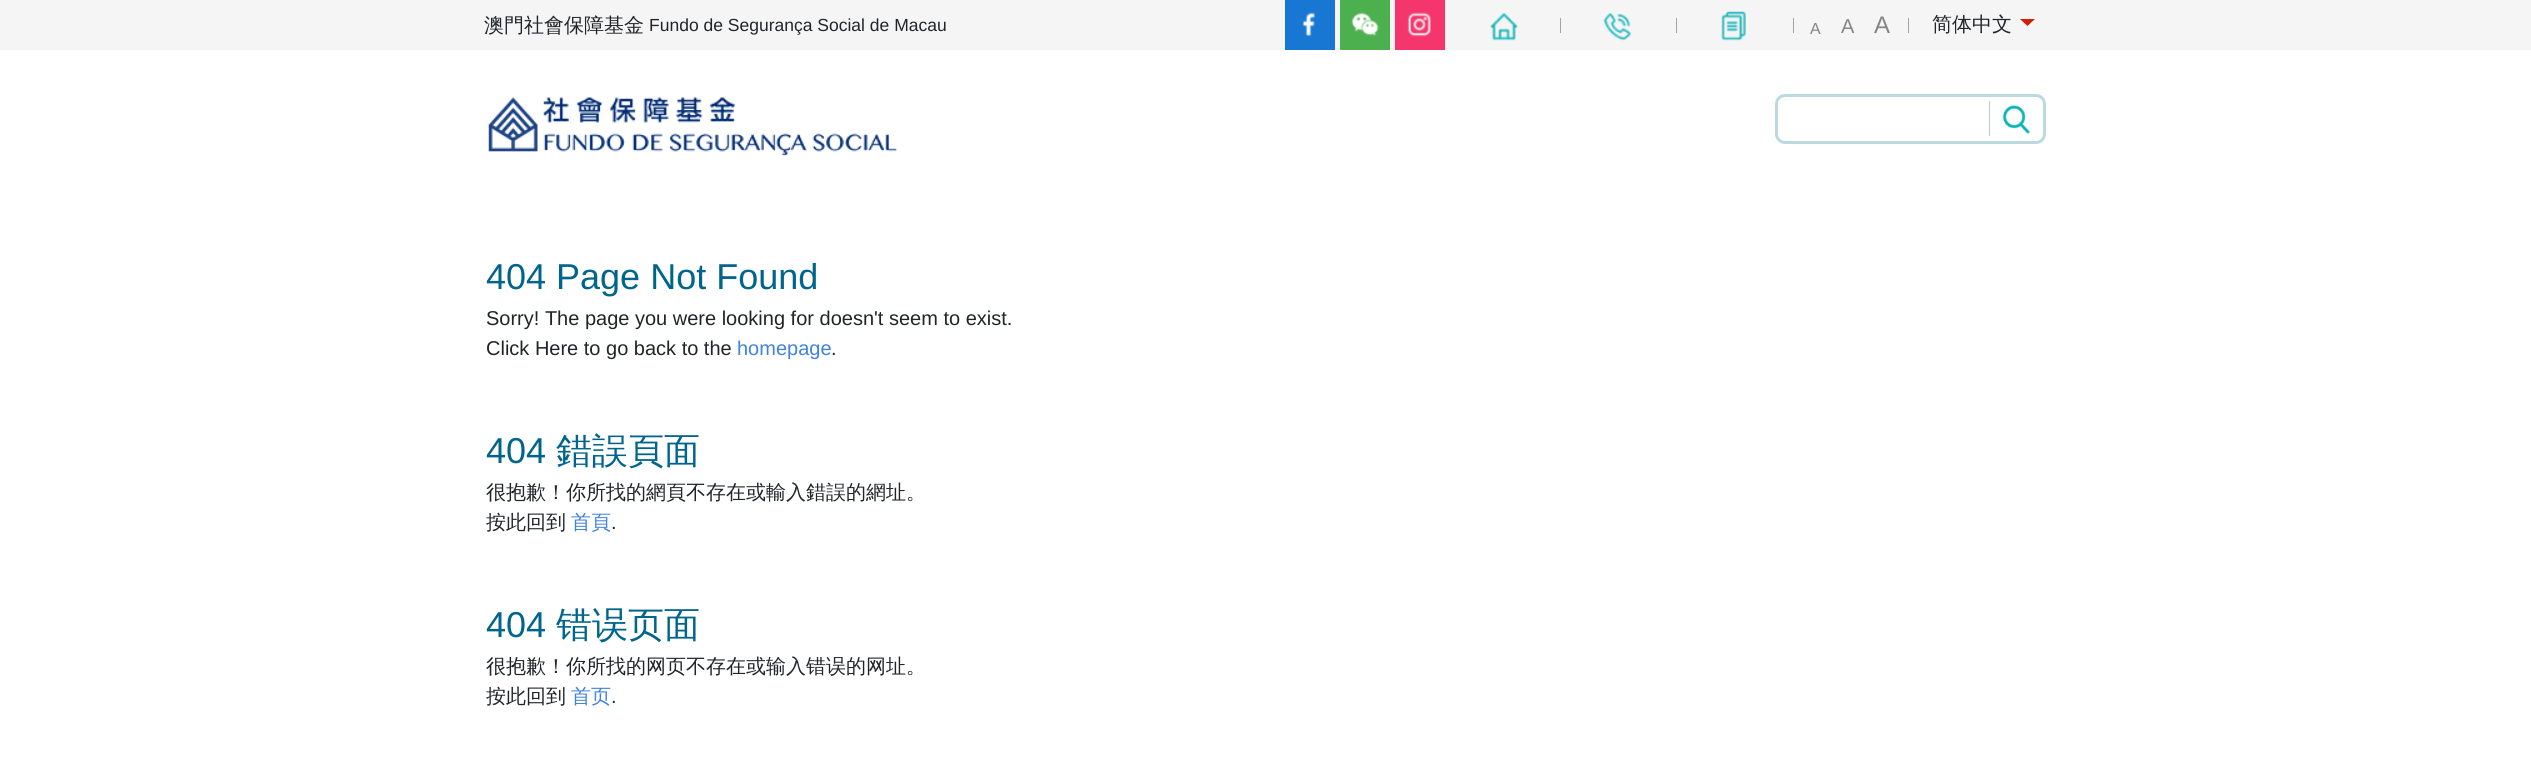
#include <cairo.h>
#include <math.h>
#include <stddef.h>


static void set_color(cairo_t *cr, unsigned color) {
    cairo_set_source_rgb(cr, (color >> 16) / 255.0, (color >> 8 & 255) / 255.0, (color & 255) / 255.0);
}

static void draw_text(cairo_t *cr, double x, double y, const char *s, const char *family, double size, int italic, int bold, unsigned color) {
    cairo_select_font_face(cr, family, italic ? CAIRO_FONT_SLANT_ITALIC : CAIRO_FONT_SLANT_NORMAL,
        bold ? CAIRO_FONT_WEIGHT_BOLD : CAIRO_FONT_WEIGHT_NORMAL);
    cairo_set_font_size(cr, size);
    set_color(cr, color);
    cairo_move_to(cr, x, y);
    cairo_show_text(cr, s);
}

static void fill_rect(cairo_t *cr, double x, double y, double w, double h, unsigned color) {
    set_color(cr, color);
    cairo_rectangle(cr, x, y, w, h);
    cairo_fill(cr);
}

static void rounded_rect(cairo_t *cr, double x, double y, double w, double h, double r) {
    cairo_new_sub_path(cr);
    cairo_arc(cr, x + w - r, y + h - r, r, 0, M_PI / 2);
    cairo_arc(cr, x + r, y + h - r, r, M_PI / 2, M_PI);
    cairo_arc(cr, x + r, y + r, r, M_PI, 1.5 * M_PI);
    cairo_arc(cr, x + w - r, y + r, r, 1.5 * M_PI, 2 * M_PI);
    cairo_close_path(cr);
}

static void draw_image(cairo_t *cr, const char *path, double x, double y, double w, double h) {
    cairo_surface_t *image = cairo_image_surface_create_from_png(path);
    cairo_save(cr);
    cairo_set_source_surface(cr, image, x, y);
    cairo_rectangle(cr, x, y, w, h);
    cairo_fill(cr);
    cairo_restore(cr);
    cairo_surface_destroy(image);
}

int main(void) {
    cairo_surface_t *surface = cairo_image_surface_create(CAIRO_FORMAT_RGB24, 2531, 759);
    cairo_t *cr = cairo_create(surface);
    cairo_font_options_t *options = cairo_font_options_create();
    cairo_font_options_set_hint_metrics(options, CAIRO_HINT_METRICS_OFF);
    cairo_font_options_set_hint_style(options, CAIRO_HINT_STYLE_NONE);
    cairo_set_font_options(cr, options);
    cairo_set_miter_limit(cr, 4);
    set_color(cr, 0xFFFFFF);
    cairo_paint(cr);
    fill_rect(cr, 0, 0, 2531, 50, 0xF5F5F5);
    draw_text(cr, 484, 32, "澳門社會保障基金", "WenQuanYi Zen Hei Medium", 20, 0, 0, 0x212529);
    draw_text(cr, 649, 31, "Fundo de Segurança Social de Macau", "Liberation Sans", 17.5, 0, 0, 0x212529);
    fill_rect(cr, 1285, 0, 50, 50, 0x1977D4);
    draw_image(cr, "assets/img1.png", 1302, 12, 13, 25);
    fill_rect(cr, 1340, 0, 50, 50, 0x4CB04F);
    draw_image(cr, "assets/img2.png", 1351, 12, 28, 24);
    fill_rect(cr, 1395, 0, 50, 50, 0xF5366C);
    draw_image(cr, "assets/img3.png", 1407, 12, 24, 25);
    draw_image(cr, "assets/img4.png", 1490, 13, 28, 28);
    fill_rect(cr, 1560, 18, 1, 15, 0xA3A3A3);
    draw_image(cr, "assets/img5.png", 1603, 13, 28, 28);
    fill_rect(cr, 1676, 18, 1, 15, 0xA3A3A3);
    draw_image(cr, "assets/img6.png", 1721, 11, 25, 30);
    fill_rect(cr, 1793, 18, 1, 15, 0xA3A3A3);
    draw_text(cr, 1810, 34, "A", "Liberation Sans", 16, 0, 0, 0x858585);
    draw_text(cr, 1841, 33, "A", "Liberation Sans", 20, 0, 0, 0x858585);
    draw_text(cr, 1874, 33, "A", "Liberation Sans", 24, 0, 0, 0x858585);
    fill_rect(cr, 1908, 18, 1, 15, 0xA3A3A3);
    draw_text(cr, 1932, 31, "简体中文", "WenQuanYi Zen Hei Medium", 20, 0, 0, 0x212529);
    set_color(cr, 0xCF2200);
    cairo_new_path(cr);
    cairo_move_to(cr, 2020, 19);
    cairo_line_to(cr, 2035, 19);
    cairo_line_to(cr, 2027.5, 26);
    cairo_close_path(cr);
    cairo_fill(cr);
    draw_image(cr, "assets/img7.png", 488, 97, 409, 59);
    rounded_rect(cr, 1776.5, 95.5, 268, 47, 8.5);
    set_color(cr, 0xBADAE0);
    cairo_set_line_width(cr, 3);
    cairo_stroke(cr);
    fill_rect(cr, 1778, 101, 1, 35, 0xFFFFFF);
    draw_image(cr, "assets/img8.png", 2002, 105, 28, 29);
    fill_rect(cr, 1989, 101, 1, 35, 0xB4CECF);
    draw_text(cr, 486, 289, "404 Page Not Found", "Liberation Sans", 36, 0, 0, 0x00658C);
    draw_text(cr, 486, 325, "Sorry! The page you were looking for doesn't seem to exist.", "Liberation Sans", 20, 0, 0, 0x212529);
    draw_text(cr, 486, 355, "Click Here to go back to the", "Liberation Sans", 20, 0, 0, 0x212529);
    draw_text(cr, 737, 355, "homepage", "Liberation Sans", 20, 0, 0, 0x4082DE);
    draw_text(cr, 831, 355, ".", "Liberation Sans", 20, 0, 0, 0x212529);
    draw_text(cr, 486, 463, "404", "Liberation Sans", 36, 0, 0, 0x00658C);
    draw_text(cr, 556, 463, "錯誤頁面", "WenQuanYi Zen Hei Medium", 36, 0, 0, 0x00658C);
    draw_text(cr, 486, 499, "很抱歉！你所找的網頁不存在或輸入錯誤的網址。", "WenQuanYi Zen Hei Medium", 20, 0, 0, 0x212529);
    draw_text(cr, 486, 529, "按此回到", "WenQuanYi Zen Hei Medium", 20, 0, 0, 0x212529);
    draw_text(cr, 571, 529, "首頁", "WenQuanYi Zen Hei Medium", 20, 0, 0, 0x4082DE);
    draw_text(cr, 611, 529, ".", "Liberation Sans", 20, 0, 0, 0x212529);
    draw_text(cr, 486, 637, "404", "Liberation Sans", 36, 0, 0, 0x00658C);
    draw_text(cr, 556, 637, "错误页面", "WenQuanYi Zen Hei Medium", 36, 0, 0, 0x00658C);
    draw_text(cr, 486, 673, "很抱歉！你所找的网页不存在或输入错误的网址。", "WenQuanYi Zen Hei Medium", 20, 0, 0, 0x212529);
    draw_text(cr, 486, 703, "按此回到", "WenQuanYi Zen Hei Medium", 20, 0, 0, 0x212529);
    draw_text(cr, 571, 703, "首页", "WenQuanYi Zen Hei Medium", 20, 0, 0, 0x4082DE);
    draw_text(cr, 611, 703, ".", "Liberation Sans", 20, 0, 0, 0x212529);
    cairo_surface_write_to_png(surface, "output.png");
    cairo_font_options_destroy(options);
    cairo_destroy(cr);
    cairo_surface_destroy(surface);
    return 0;
}
